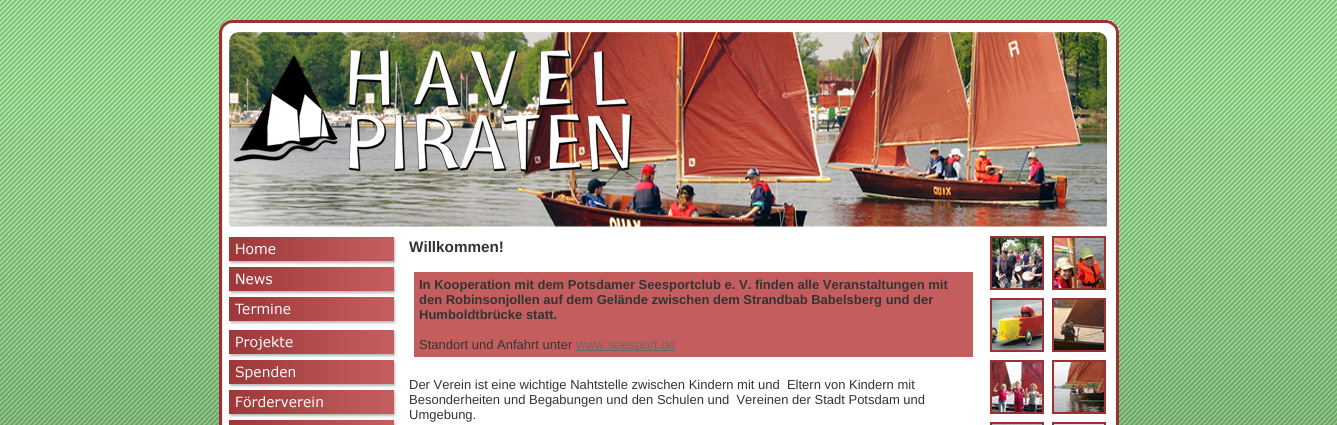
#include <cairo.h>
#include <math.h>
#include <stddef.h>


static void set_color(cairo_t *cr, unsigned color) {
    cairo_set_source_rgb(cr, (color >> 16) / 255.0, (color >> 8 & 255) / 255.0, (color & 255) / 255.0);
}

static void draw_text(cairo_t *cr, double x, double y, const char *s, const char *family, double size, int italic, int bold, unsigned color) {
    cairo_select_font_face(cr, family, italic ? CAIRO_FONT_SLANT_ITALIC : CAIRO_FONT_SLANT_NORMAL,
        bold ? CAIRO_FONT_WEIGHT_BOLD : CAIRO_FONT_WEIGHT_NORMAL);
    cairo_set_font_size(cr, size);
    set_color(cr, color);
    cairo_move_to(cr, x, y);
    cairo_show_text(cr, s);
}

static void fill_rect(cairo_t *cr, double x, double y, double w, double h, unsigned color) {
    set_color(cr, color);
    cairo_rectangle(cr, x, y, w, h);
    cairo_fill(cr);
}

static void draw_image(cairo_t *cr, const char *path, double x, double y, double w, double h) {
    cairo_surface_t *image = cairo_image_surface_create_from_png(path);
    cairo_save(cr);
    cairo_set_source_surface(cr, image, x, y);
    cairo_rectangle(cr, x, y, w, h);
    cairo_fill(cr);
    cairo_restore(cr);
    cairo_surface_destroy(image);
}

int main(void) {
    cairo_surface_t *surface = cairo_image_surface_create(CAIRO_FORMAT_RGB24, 1337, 425);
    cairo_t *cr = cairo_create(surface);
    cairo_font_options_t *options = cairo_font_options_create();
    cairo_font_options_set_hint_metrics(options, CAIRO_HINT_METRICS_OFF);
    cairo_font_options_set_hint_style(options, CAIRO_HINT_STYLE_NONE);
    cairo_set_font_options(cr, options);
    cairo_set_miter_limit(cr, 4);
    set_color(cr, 0xFFFFFF);
    cairo_paint(cr);
    draw_image(cr, "assets/img1.png", 0, 0, 1337, 425);
    draw_image(cr, "assets/img2.png", 232, 20, 887, 405);
    draw_image(cr, "assets/img3.png", 219, 20, 13, 405);
    draw_image(cr, "assets/img4.png", 229, 32, 878, 195);
    draw_image(cr, "assets/img5.png", 229, 237, 168, 28);
    draw_image(cr, "assets/img6.png", 229, 267, 168, 28);
    draw_image(cr, "assets/img7.png", 229, 297, 168, 28);
    draw_image(cr, "assets/img8.png", 229, 330, 168, 28);
    draw_image(cr, "assets/img9.png", 229, 360, 168, 24);
    draw_image(cr, "assets/img10.png", 229, 384, 168, 34);
    draw_image(cr, "assets/img11.png", 229, 420, 168, 5);
    draw_text(cr, 409, 252, "Willkommen!", "Liberation Sans", 15.25, 0, 1, 0x333333);
    fill_rect(cr, 414, 272, 559, 85, 0xC45E5E);
    draw_text(cr, 419, 289, "In Kooperation mit dem Potsdamer Seesportclub e. V. finden alle Veranstaltungen mit", "Liberation Sans", 13, 0, 1, 0x333333);
    draw_text(cr, 419, 304, "den Robinsonjollen auf dem Gelände zwischen dem Strandbab Babelsberg und der", "Liberation Sans", 13, 0, 1, 0x333333);
    draw_text(cr, 419, 319, "Humboldtbrücke statt.", "Liberation Sans", 13, 0, 1, 0x333333);
    draw_text(cr, 419, 349, "Standort und Anfahrt unter", "Liberation Sans", 13, 0, 0, 0x333333);
    fill_rect(cr, 576, 350, 99, 1, 0x666666);
    draw_text(cr, 576, 349, "www.seesport.de", "Liberation Sans", 13, 0, 0, 0x666666);
    draw_text(cr, 409, 389, "Der Verein ist eine wichtige Nahtstelle zwischen Kindern mit und  Eltern von Kindern mit", "Liberation Sans", 13, 0, 0, 0x333333);
    draw_text(cr, 409, 404, "Besonderheiten und Begabungen und den Schulen und  Vereinen der Stadt Potsdam und", "Liberation Sans", 13, 0, 0, 0x333333);
    draw_text(cr, 409, 419, "Umgebung.", "Liberation Sans", 13, 0, 0, 0x333333);
    cairo_rectangle(cr, 991, 237, 52, 52);
    set_color(cr, 0x993333);
    cairo_stroke(cr);
    draw_image(cr, "assets/img12.png", 992, 238, 50, 50);
    cairo_rectangle(cr, 1053, 237, 52, 52);
    cairo_stroke(cr);
    draw_image(cr, "assets/img13.png", 1054, 238, 50, 50);
    cairo_rectangle(cr, 991, 299, 52, 52);
    cairo_stroke(cr);
    draw_image(cr, "assets/img14.png", 992, 300, 50, 50);
    cairo_rectangle(cr, 1053, 299, 52, 52);
    cairo_stroke(cr);
    draw_image(cr, "assets/img15.png", 1054, 300, 50, 50);
    cairo_rectangle(cr, 991, 361, 52, 52);
    cairo_stroke(cr);
    draw_image(cr, "assets/img16.png", 992, 362, 50, 50);
    cairo_rectangle(cr, 1053, 361, 52, 52);
    cairo_stroke(cr);
    draw_image(cr, "assets/img17.png", 1054, 362, 50, 50);
    cairo_rectangle(cr, 991, 423, 52, 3);
    cairo_stroke(cr);
    draw_image(cr, "assets/img18.png", 992, 424, 50, 1);
    cairo_rectangle(cr, 1053, 423, 52, 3);
    cairo_stroke(cr);
    draw_image(cr, "assets/img19.png", 1054, 424, 50, 1);
    cairo_surface_write_to_png(surface, "output.png");
    cairo_font_options_destroy(options);
    cairo_destroy(cr);
    cairo_surface_destroy(surface);
    return 0;
}
